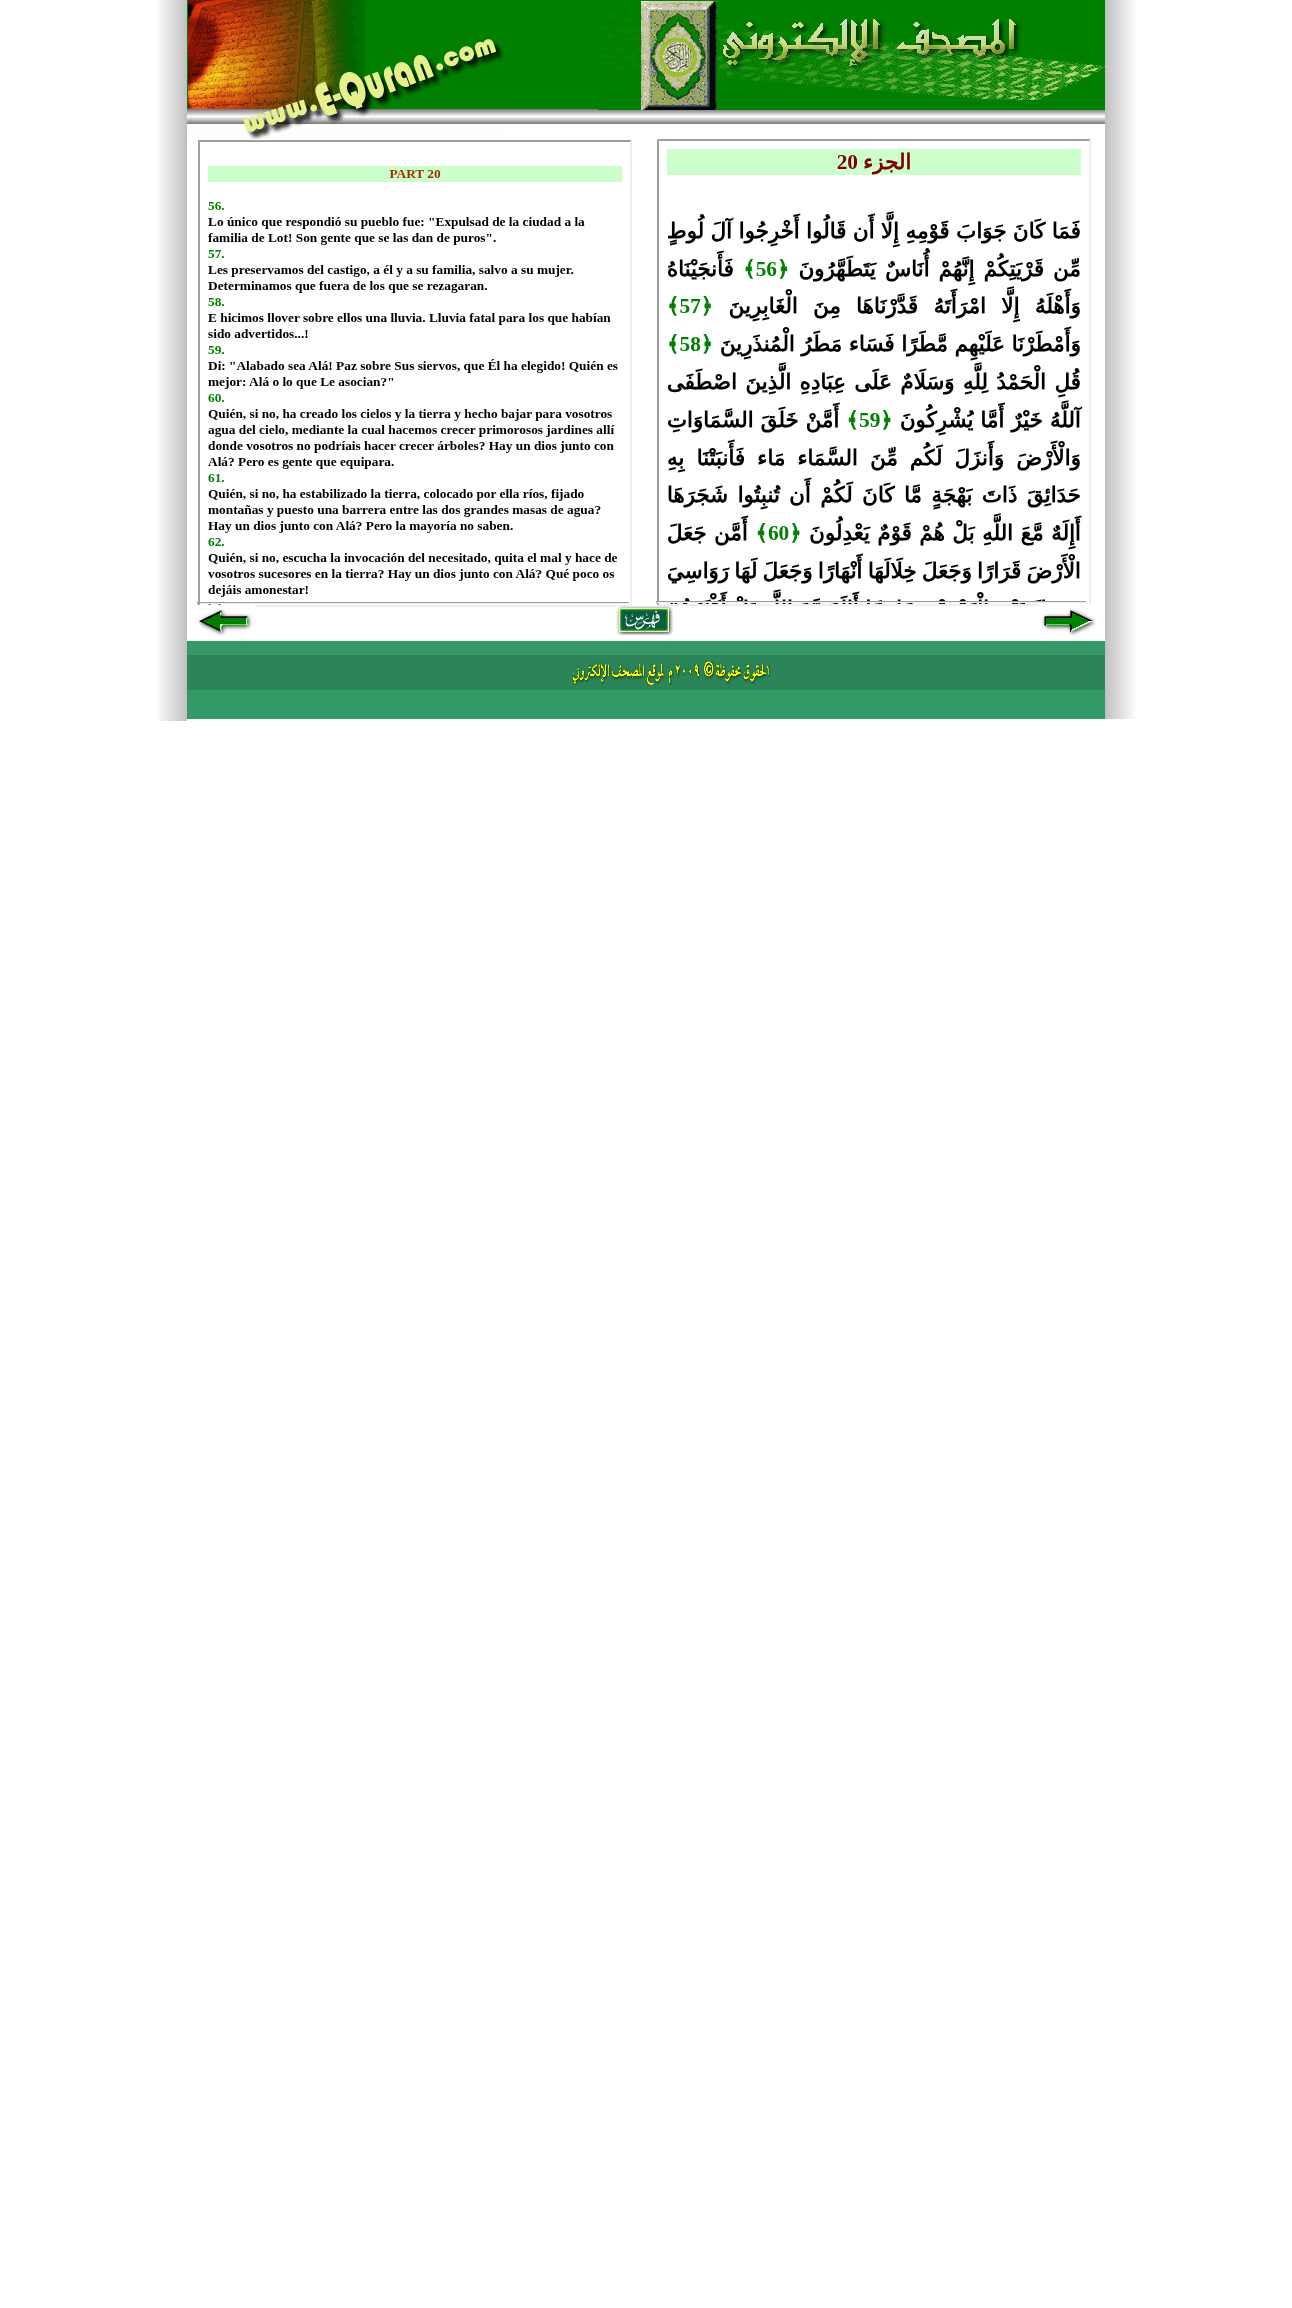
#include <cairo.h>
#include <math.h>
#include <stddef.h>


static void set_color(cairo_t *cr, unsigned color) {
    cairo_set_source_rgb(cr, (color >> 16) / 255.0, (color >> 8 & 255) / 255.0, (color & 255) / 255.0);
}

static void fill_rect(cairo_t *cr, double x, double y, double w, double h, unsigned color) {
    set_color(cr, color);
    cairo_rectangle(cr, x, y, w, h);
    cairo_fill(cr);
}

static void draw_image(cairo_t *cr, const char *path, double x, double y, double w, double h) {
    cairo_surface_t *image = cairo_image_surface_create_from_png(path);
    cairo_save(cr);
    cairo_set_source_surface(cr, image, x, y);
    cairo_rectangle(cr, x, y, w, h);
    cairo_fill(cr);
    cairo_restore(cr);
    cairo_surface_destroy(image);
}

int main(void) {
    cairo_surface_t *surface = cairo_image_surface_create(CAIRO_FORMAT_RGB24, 1292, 2308);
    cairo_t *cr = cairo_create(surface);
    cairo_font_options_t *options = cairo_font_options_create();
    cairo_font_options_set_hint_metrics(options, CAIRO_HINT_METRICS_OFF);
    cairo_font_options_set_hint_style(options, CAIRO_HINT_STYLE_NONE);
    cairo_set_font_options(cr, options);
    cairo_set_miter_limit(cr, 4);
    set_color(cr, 0xFFFFFF);
    cairo_paint(cr);
    draw_image(cr, "assets/img1.png", 157, 0, 30, 721);
    fill_rect(cr, 187, 0, 411, 109, 0x008000);
    draw_image(cr, "assets/img2.png", 188, 0, 186, 1);
    draw_image(cr, "assets/img6.png", 187, 109, 918, 15);
    draw_image(cr, "assets/img3.png", 598, 0, 507, 110);
    draw_image(cr, "assets/img4.png", 1105, 0, 30, 719);
    draw_image(cr, "assets/img5.png", 188, 1, 316, 138);
    set_color(cr, 0x9F9F9F);
    cairo_new_path(cr);
    cairo_move_to(cr, 198, 140);
    cairo_line_to(cr, 632, 140);
    cairo_line_to(cr, 630, 142);
    cairo_line_to(cr, 200, 142);
    cairo_close_path(cr);
    cairo_fill(cr);
    set_color(cr, 0xEEEEEE);
    cairo_new_path(cr);
    cairo_move_to(cr, 632, 140);
    cairo_line_to(cr, 632, 607);
    cairo_line_to(cr, 630, 605);
    cairo_line_to(cr, 630, 142);
    cairo_close_path(cr);
    cairo_fill(cr);
    cairo_new_path(cr);
    cairo_move_to(cr, 632, 607);
    cairo_line_to(cr, 198, 607);
    cairo_line_to(cr, 200, 605);
    cairo_line_to(cr, 630, 605);
    cairo_close_path(cr);
    cairo_fill(cr);
    set_color(cr, 0x9F9F9F);
    cairo_new_path(cr);
    cairo_move_to(cr, 198, 607);
    cairo_line_to(cr, 198, 140);
    cairo_line_to(cr, 200, 142);
    cairo_line_to(cr, 200, 605);
    cairo_close_path(cr);
    cairo_fill(cr);
    draw_image(cr, "assets/img7.png", 208, 166, 414, 439);
    cairo_new_path(cr);
    cairo_move_to(cr, 657, 139);
    cairo_line_to(cr, 1091, 139);
    cairo_line_to(cr, 1089, 141);
    cairo_line_to(cr, 659, 141);
    cairo_close_path(cr);
    cairo_fill(cr);
    set_color(cr, 0xEEEEEE);
    cairo_new_path(cr);
    cairo_move_to(cr, 1091, 139);
    cairo_line_to(cr, 1091, 606);
    cairo_line_to(cr, 1089, 604);
    cairo_line_to(cr, 1089, 141);
    cairo_close_path(cr);
    cairo_fill(cr);
    cairo_new_path(cr);
    cairo_move_to(cr, 1091, 606);
    cairo_line_to(cr, 657, 606);
    cairo_line_to(cr, 659, 604);
    cairo_line_to(cr, 1089, 604);
    cairo_close_path(cr);
    cairo_fill(cr);
    set_color(cr, 0x9F9F9F);
    cairo_new_path(cr);
    cairo_move_to(cr, 657, 606);
    cairo_line_to(cr, 657, 139);
    cairo_line_to(cr, 659, 141);
    cairo_line_to(cr, 659, 604);
    cairo_close_path(cr);
    cairo_fill(cr);
    draw_image(cr, "assets/img8.png", 667, 149, 416, 455);
    fill_rect(cr, 197, 602, 1, 2, 0x9F9F9F);
    fill_rect(cr, 199, 602, 430, 1, 0x9F9F9F);
    fill_rect(cr, 199, 603, 430, 1, 0xEEEEEE);
    fill_rect(cr, 199, 602, 1, 2, 0x9F9F9F);
    fill_rect(cr, 656, 601, 430, 1, 0x9F9F9F);
    fill_rect(cr, 656, 602, 430, 1, 0xEEEEEE);
    fill_rect(cr, 656, 601, 1, 2, 0x9F9F9F);
    draw_image(cr, "assets/img9.png", 198, 605, 57, 31);
    draw_image(cr, "assets/img10.png", 616, 606, 57, 29);
    draw_image(cr, "assets/img11.png", 1039, 603, 57, 33);
    fill_rect(cr, 187, 641, 918, 78, 0x339966);
    fill_rect(cr, 187, 655, 918, 35, 0x2C8558);
    draw_image(cr, "assets/img12.png", 572, 660, 199, 25);
    cairo_surface_write_to_png(surface, "output.png");
    cairo_font_options_destroy(options);
    cairo_destroy(cr);
    cairo_surface_destroy(surface);
    return 0;
}
